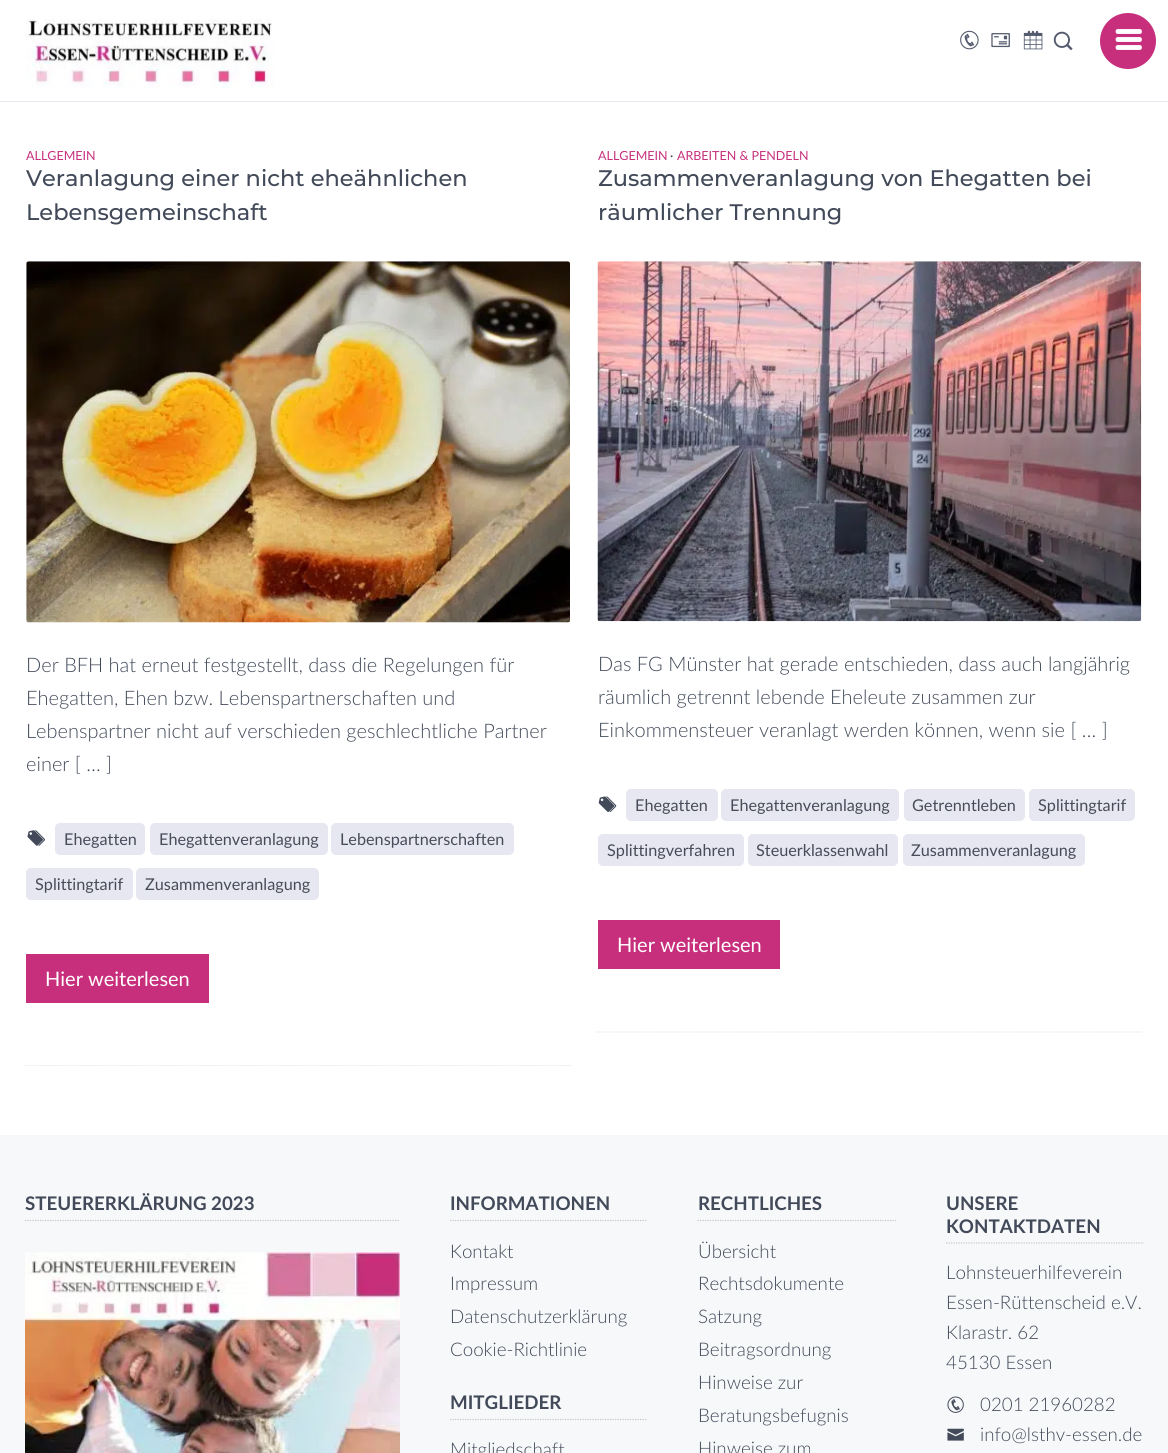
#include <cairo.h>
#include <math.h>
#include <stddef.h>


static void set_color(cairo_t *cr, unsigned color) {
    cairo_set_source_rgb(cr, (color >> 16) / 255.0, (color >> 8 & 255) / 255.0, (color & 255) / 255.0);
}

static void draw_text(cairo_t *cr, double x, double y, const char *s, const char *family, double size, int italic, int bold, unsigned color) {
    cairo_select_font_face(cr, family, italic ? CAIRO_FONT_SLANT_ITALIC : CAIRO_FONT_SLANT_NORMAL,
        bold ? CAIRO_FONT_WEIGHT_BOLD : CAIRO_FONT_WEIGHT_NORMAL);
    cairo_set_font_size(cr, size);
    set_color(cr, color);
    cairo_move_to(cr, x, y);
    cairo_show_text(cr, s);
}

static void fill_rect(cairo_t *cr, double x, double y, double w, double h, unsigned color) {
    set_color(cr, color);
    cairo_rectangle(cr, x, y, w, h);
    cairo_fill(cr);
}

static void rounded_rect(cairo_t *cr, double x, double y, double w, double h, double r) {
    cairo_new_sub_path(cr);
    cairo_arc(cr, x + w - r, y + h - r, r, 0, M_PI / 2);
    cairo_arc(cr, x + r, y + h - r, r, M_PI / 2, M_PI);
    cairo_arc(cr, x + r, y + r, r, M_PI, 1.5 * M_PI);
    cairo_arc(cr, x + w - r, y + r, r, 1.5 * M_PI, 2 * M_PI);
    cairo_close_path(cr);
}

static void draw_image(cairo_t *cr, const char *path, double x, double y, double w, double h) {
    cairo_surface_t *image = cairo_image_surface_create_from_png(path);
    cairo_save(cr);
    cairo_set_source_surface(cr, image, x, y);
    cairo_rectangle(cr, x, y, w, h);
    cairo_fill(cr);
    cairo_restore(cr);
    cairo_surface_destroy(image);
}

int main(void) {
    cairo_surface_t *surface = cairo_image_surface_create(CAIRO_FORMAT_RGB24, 1168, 1453);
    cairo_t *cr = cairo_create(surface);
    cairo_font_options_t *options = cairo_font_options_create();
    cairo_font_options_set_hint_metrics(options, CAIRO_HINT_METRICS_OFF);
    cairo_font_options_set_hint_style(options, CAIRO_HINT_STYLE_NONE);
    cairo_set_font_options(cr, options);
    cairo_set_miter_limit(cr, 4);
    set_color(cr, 0xFFFFFF);
    cairo_paint(cr);
    fill_rect(cr, 0, 101, 1168, 1, 0xE6E7F0);
    draw_image(cr, "assets/img1.png", 26, 19, 249, 70);
    draw_image(cr, "assets/img2.png", 960, 30, 19, 20);
    draw_image(cr, "assets/img3.png", 991, 33, 19, 15);
    draw_image(cr, "assets/img4.png", 1023, 30, 20, 20);
    draw_image(cr, "assets/img5.png", 1053, 31, 20, 20);
    set_color(cr, 0xC72F7C);
    cairo_arc(cr, 1128, 41, 28, 0, 2 * M_PI);
    cairo_fill(cr);
    draw_image(cr, "assets/img6.png", 1115, 29, 27, 21);
    cairo_new_path(cr);
    cairo_move_to(cr, 25, 1065.5);
    cairo_line_to(cr, 571, 1065.5);
    set_color(cr, 0xE6E7F0);
    cairo_set_line_width(cr, 1.2);
    cairo_set_dash(cr, (double[]){1.25, 1.25}, 2, 0);
    cairo_stroke(cr);
    draw_text(cr, 26, 160, "ALLGEMEIN", "Lato", 12.5, 0, 0, 0xC72F7C);
    draw_text(cr, 26, 186, "Veranlagung einer nicht eheähnlichen", "Montserrat Medium", 22.5, 0, 0, 0x424A59);
    draw_text(cr, 26, 220, "Lebensgemeinschaft", "Montserrat Medium", 22.5, 0, 0, 0x424A59);
    draw_image(cr, "assets/img7.png", 26, 261, 544, 362);
    draw_text(cr, 26, 672, "Der BFH hat erneut festgestellt, dass die Regelungen für", "Lato Light", 20, 0, 0, 0x424A59);
    draw_text(cr, 26, 705, "Ehegatten, Ehen bzw. Lebenspartnerschaften und", "Lato Light", 20, 0, 0, 0x424A59);
    draw_text(cr, 26, 738, "Lebenspartner nicht auf verschieden geschlechtliche Partner", "Lato Light", 20, 0, 0, 0x424A59);
    draw_text(cr, 26, 771, "einer [ … ]", "Lato Light", 20, 0, 0, 0x424A59);
    draw_image(cr, "assets/img8.png", 27, 830, 18, 16);
    set_color(cr, 0xE6E7F0);
    rounded_rect(cr, 55, 823, 90, 32, 5);
    cairo_fill(cr);
    draw_text(cr, 64, 845, "Ehegatten", "Lato", 16.25, 0, 0, 0x484B59);
    set_color(cr, 0xE6E7F0);
    rounded_rect(cr, 150, 823, 178, 32, 5);
    cairo_fill(cr);
    draw_text(cr, 159, 845, "Ehegattenveranlagung", "Lato", 16.25, 0, 0, 0x484B59);
    set_color(cr, 0xE6E7F0);
    rounded_rect(cr, 331, 823, 183, 32, 5);
    cairo_fill(cr);
    draw_text(cr, 340, 845, "Lebenspartnerschaften", "Lato", 16.25, 0, 0, 0x484B59);
    set_color(cr, 0xE6E7F0);
    rounded_rect(cr, 26, 868, 107, 32, 5);
    cairo_fill(cr);
    draw_text(cr, 35, 890, "Splittingtarif", "Lato", 16.25, 0, 0, 0x484B59);
    set_color(cr, 0xE6E7F0);
    rounded_rect(cr, 136, 868, 183, 32, 5);
    cairo_fill(cr);
    draw_text(cr, 145, 890, "Zusammenveranlagung", "Lato", 16.25, 0, 0, 0x484B59);
    fill_rect(cr, 26, 954, 183, 49, 0xC72F7C);
    draw_text(cr, 45, 986, "Hier weiterlesen", "Lato", 20, 0, 0, 0xFFFFFF);
    cairo_new_path(cr);
    cairo_move_to(cr, 596, 1032);
    cairo_line_to(cr, 1142.5, 1032);
    set_color(cr, 0xE6E7F0);
    cairo_stroke(cr);
    draw_text(cr, 598, 160, "ALLGEMEIN", "Lato", 12.5, 0, 0, 0xC72F7C);
    draw_text(cr, 670, 160, "·", "Lato", 12.5, 0, 0, 0x424A59);
    draw_text(cr, 677, 160, "ARBEITEN & PENDELN", "Lato", 12.5, 0, 0, 0xC72F7C);
    draw_text(cr, 598, 186, "Zusammenveranlagung von Ehegatten bei", "Montserrat Medium", 22.5, 0, 0, 0x424A59);
    draw_text(cr, 598, 220, "räumlicher Trennung", "Montserrat Medium", 22.5, 0, 0, 0x424A59);
    draw_image(cr, "assets/img9.png", 597, 261, 545, 361);
    draw_text(cr, 598, 671, "Das FG Münster hat gerade entschieden, dass auch langjährig", "Lato Light", 20, 0, 0, 0x424A59);
    draw_text(cr, 598, 704, "räumlich getrennt lebende Eheleute zusammen zur", "Lato Light", 20, 0, 0, 0x424A59);
    draw_text(cr, 598, 737, "Einkommensteuer veranlagt werden können, wenn sie [ … ]", "Lato Light", 20, 0, 0, 0x424A59);
    draw_image(cr, "assets/img10.png", 598, 796, 19, 16);
    set_color(cr, 0xE6E7F0);
    rounded_rect(cr, 626, 789, 92, 32, 5);
    cairo_fill(cr);
    draw_text(cr, 635, 811, "Ehegatten", "Lato", 16.25, 0, 0, 0x484B59);
    set_color(cr, 0xE6E7F0);
    rounded_rect(cr, 721, 789, 178, 32, 5);
    cairo_fill(cr);
    draw_text(cr, 730, 811, "Ehegattenveranlagung", "Lato", 16.25, 0, 0, 0x484B59);
    set_color(cr, 0xE6E7F0);
    rounded_rect(cr, 904, 789, 121, 32, 5);
    cairo_fill(cr);
    draw_text(cr, 912, 811, "Getrenntleben", "Lato", 16.25, 0, 0, 0x484B59);
    set_color(cr, 0xE6E7F0);
    rounded_rect(cr, 1029, 789, 106, 32, 5);
    cairo_fill(cr);
    draw_text(cr, 1038, 811, "Splittingtarif", "Lato", 16.25, 0, 0, 0x484B59);
    set_color(cr, 0xE6E7F0);
    rounded_rect(cr, 598, 834, 146, 32, 5);
    cairo_fill(cr);
    draw_text(cr, 607, 856, "Splittingverfahren", "Lato", 16.25, 0, 0, 0x484B59);
    set_color(cr, 0xE6E7F0);
    rounded_rect(cr, 748, 834, 150, 32, 5);
    cairo_fill(cr);
    draw_text(cr, 756, 856, "Steuerklassenwahl", "Lato", 16.25, 0, 0, 0x484B59);
    set_color(cr, 0xE6E7F0);
    rounded_rect(cr, 903, 834, 182, 32, 5);
    cairo_fill(cr);
    draw_text(cr, 911, 856, "Zusammenveranlagung", "Lato", 16.25, 0, 0, 0x484B59);
    fill_rect(cr, 598, 920, 182, 49, 0xC72F7C);
    draw_text(cr, 617, 952, "Hier weiterlesen", "Lato", 20, 0, 0, 0xFFFFFF);
    fill_rect(cr, 0, 1135, 1168, 318, 0xF7F8FA);
    cairo_new_path(cr);
    cairo_move_to(cr, 25, 1220.5);
    cairo_line_to(cr, 400, 1220.5);
    set_color(cr, 0xC6C6C8);
    cairo_stroke(cr);
    draw_text(cr, 25, 1210, "STEUERERKLÄRUNG 2023", "Lato", 18.75, 0, 1, 0x424A59);
    draw_image(cr, "assets/img11.png", 25, 1252, 375, 201);
    cairo_new_path(cr);
    cairo_move_to(cr, 450, 1220.5);
    cairo_line_to(cr, 647.5, 1220.5);
    set_color(cr, 0xC6C6C8);
    cairo_stroke(cr);
    draw_text(cr, 450, 1210, "INFORMATIONEN", "Lato", 18.75, 0, 1, 0x424A59);
    draw_text(cr, 450, 1258, "Kontakt", "Lato Light", 18.75, 0, 0, 0x424A59);
    draw_text(cr, 450, 1290, "Impressum", "Lato Light", 18.75, 0, 0, 0x424A59);
    draw_text(cr, 450, 1323, "Datenschutzerklärung", "Lato Light", 18.75, 0, 0, 0x424A59);
    draw_text(cr, 450, 1356, "Cookie-Richtlinie", "Lato Light", 18.75, 0, 0, 0x424A59);
    cairo_new_path(cr);
    cairo_move_to(cr, 450, 1419.5);
    cairo_line_to(cr, 647.5, 1419.5);
    set_color(cr, 0xC6C6C8);
    cairo_stroke(cr);
    draw_text(cr, 450, 1409, "MITGLIEDER", "Lato", 18.75, 0, 1, 0x424A59);
    draw_text(cr, 450, 1456, "Mitgliedschaft", "Lato Light", 18.75, 0, 0, 0x424A59);
    cairo_new_path(cr);
    cairo_move_to(cr, 697.5, 1220.5);
    cairo_line_to(cr, 896, 1220.5);
    set_color(cr, 0xC6C6C8);
    cairo_stroke(cr);
    draw_text(cr, 698, 1210, "RECHTLICHES", "Lato", 18.75, 0, 1, 0x424A59);
    draw_text(cr, 698, 1258, "Übersicht", "Lato Light", 18.75, 0, 0, 0x424A59);
    draw_text(cr, 698, 1290, "Rechtsdokumente", "Lato Light", 18.75, 0, 0, 0x424A59);
    draw_text(cr, 698, 1323, "Satzung", "Lato Light", 18.75, 0, 0, 0x424A59);
    draw_text(cr, 698, 1356, "Beitragsordnung", "Lato Light", 18.75, 0, 0, 0x424A59);
    draw_text(cr, 698, 1389, "Hinweise zur", "Lato Light", 18.75, 0, 0, 0x424A59);
    draw_text(cr, 698, 1422, "Beratungsbefugnis", "Lato Light", 18.75, 0, 0, 0x424A59);
    draw_text(cr, 698, 1455, "Hinweise zum", "Lato Light", 18.75, 0, 0, 0x424A59);
    cairo_new_path(cr);
    cairo_move_to(cr, 946, 1243);
    cairo_line_to(cr, 1144, 1243);
    set_color(cr, 0xC6C6C8);
    cairo_stroke(cr);
    draw_text(cr, 946, 1210, "UNSERE", "Lato", 18.75, 0, 1, 0x424A59);
    draw_text(cr, 946, 1233, "KONTAKTDATEN", "Lato", 18.75, 0, 1, 0x424A59);
    draw_text(cr, 946, 1279, "Lohnsteuerhilfeverein", "Lato Light", 18.75, 0, 0, 0x424A59);
    draw_text(cr, 946, 1309, "Essen-Rüttenscheid e.V.", "Lato Light", 18.75, 0, 0, 0x424A59);
    draw_text(cr, 946, 1339, "Klarastr. 62", "Lato Light", 18.75, 0, 0, 0x424A59);
    draw_text(cr, 946, 1369, "45130 Essen", "Lato Light", 18.75, 0, 0, 0x424A59);
    draw_image(cr, "assets/img12.png", 947, 1396, 17, 17);
    draw_text(cr, 980, 1411, "0201 21960282", "Lato Light", 18.75, 0, 0, 0x424A59);
    draw_image(cr, "assets/img13.png", 947, 1428, 17, 13);
    draw_text(cr, 980, 1441, "info@lsthv-essen.de", "Lato Light", 18.75, 0, 0, 0x424A59);
    cairo_surface_write_to_png(surface, "output.png");
    cairo_font_options_destroy(options);
    cairo_destroy(cr);
    cairo_surface_destroy(surface);
    return 0;
}
